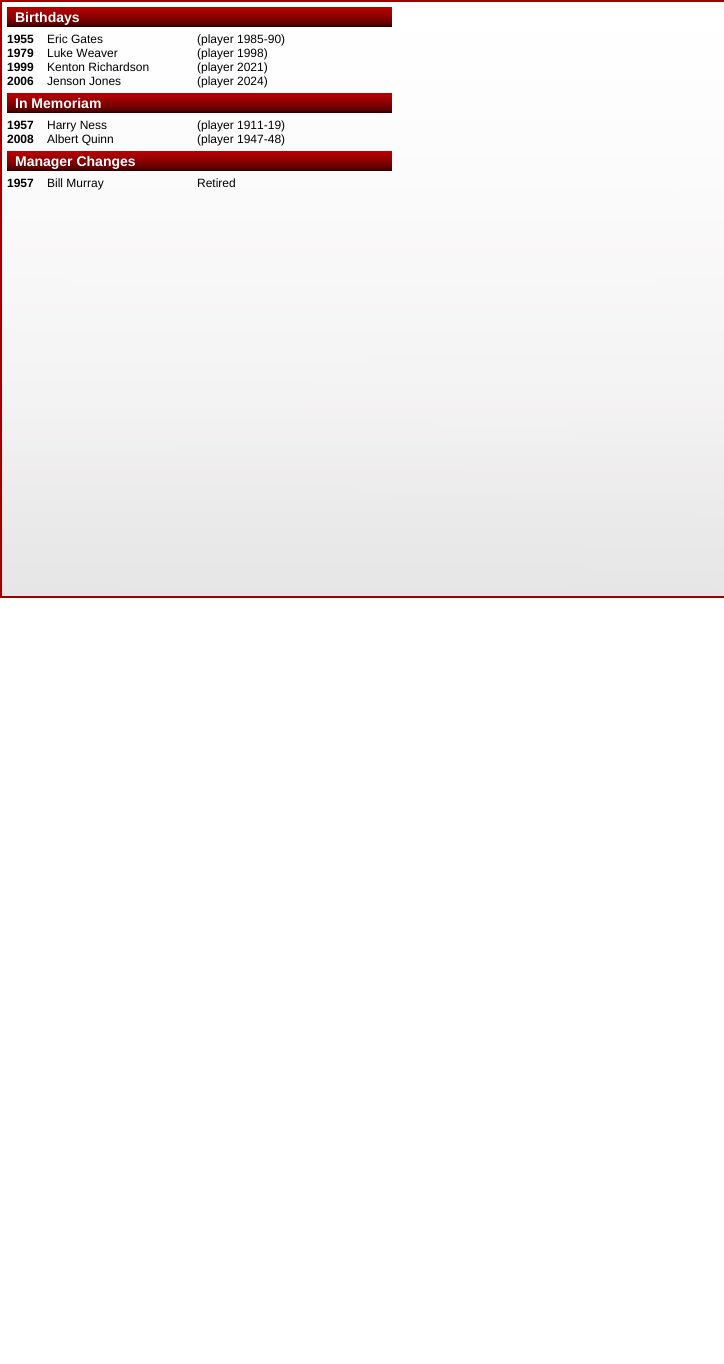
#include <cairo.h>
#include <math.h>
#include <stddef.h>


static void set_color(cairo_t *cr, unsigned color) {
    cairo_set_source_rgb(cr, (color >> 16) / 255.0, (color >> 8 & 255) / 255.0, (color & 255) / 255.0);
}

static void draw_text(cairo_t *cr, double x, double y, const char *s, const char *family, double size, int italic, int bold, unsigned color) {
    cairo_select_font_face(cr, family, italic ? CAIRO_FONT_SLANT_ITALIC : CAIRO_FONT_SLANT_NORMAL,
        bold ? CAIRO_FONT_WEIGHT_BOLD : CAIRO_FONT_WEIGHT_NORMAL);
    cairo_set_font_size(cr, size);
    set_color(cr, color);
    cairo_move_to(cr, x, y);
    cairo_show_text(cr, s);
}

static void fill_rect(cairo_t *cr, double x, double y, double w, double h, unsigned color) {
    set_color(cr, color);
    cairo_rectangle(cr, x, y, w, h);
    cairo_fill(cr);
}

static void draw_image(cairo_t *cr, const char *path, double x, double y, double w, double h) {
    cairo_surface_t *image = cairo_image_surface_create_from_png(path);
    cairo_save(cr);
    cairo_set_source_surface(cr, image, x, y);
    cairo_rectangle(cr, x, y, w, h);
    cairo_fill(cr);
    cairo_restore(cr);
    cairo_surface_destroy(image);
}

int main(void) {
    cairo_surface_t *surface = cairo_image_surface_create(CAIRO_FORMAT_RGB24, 724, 1364);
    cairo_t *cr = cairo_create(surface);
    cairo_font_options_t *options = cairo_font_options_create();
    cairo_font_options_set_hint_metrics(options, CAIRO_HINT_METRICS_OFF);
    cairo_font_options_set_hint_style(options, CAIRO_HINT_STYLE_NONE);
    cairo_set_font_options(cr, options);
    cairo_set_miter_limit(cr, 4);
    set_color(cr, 0xFFFFFF);
    cairo_paint(cr);
    fill_rect(cr, 0, 0, 724, 598, 0x9F0103);
    draw_image(cr, "assets/img1.png", 2, 2, 722, 594);
    draw_image(cr, "assets/img2.png", 7, 7, 385, 20);
    draw_text(cr, 15, 22, "Birthdays", "Liberation Sans", 14, 0, 1, 0xFFFFFF);
    draw_text(cr, 7, 43, "1955", "Liberation Sans", 12, 0, 1, 0x000000);
    draw_text(cr, 47, 43, "Eric Gates", "Liberation Sans", 12, 0, 0, 0x000000);
    draw_text(cr, 197, 43, "(player 1985-90)", "Liberation Sans", 12, 0, 0, 0x000000);
    draw_text(cr, 7, 57, "1979", "Liberation Sans", 12, 0, 1, 0x000000);
    draw_text(cr, 47, 57, "Luke Weaver", "Liberation Sans", 12, 0, 0, 0x000000);
    draw_text(cr, 197, 57, "(player 1998)", "Liberation Sans", 12, 0, 0, 0x000000);
    draw_text(cr, 7, 71, "1999", "Liberation Sans", 12, 0, 1, 0x000000);
    draw_text(cr, 47, 71, "Kenton Richardson", "Liberation Sans", 12, 0, 0, 0x000000);
    draw_text(cr, 197, 71, "(player 2021)", "Liberation Sans", 12, 0, 0, 0x000000);
    draw_text(cr, 7, 85, "2006", "Liberation Sans", 12, 0, 1, 0x000000);
    draw_text(cr, 47, 85, "Jenson Jones", "Liberation Sans", 12, 0, 0, 0x000000);
    draw_text(cr, 197, 85, "(player 2024)", "Liberation Sans", 12, 0, 0, 0x000000);
    draw_image(cr, "assets/img2.png", 7, 93, 385, 20);
    draw_text(cr, 15, 108, "In Memoriam", "Liberation Sans", 14, 0, 1, 0xFFFFFF);
    draw_text(cr, 7, 129, "1957", "Liberation Sans", 12, 0, 1, 0x000000);
    draw_text(cr, 47, 129, "Harry Ness", "Liberation Sans", 12, 0, 0, 0x000000);
    draw_text(cr, 197, 129, "(player 1911-19)", "Liberation Sans", 12, 0, 0, 0x000000);
    draw_text(cr, 7, 143, "2008", "Liberation Sans", 12, 0, 1, 0x000000);
    draw_text(cr, 47, 143, "Albert Quinn", "Liberation Sans", 12, 0, 0, 0x000000);
    draw_text(cr, 197, 143, "(player 1947-48)", "Liberation Sans", 12, 0, 0, 0x000000);
    draw_image(cr, "assets/img2.png", 7, 151, 385, 20);
    draw_text(cr, 15, 166, "Manager Changes", "Liberation Sans", 14, 0, 1, 0xFFFFFF);
    draw_text(cr, 7, 187, "1957", "Liberation Sans", 12, 0, 1, 0x000000);
    draw_text(cr, 47, 187, "Bill Murray", "Liberation Sans", 12, 0, 0, 0x000000);
    draw_text(cr, 197, 187, "Retired", "Liberation Sans", 12, 0, 0, 0x000000);
    cairo_surface_write_to_png(surface, "output.png");
    cairo_font_options_destroy(options);
    cairo_destroy(cr);
    cairo_surface_destroy(surface);
    return 0;
}
